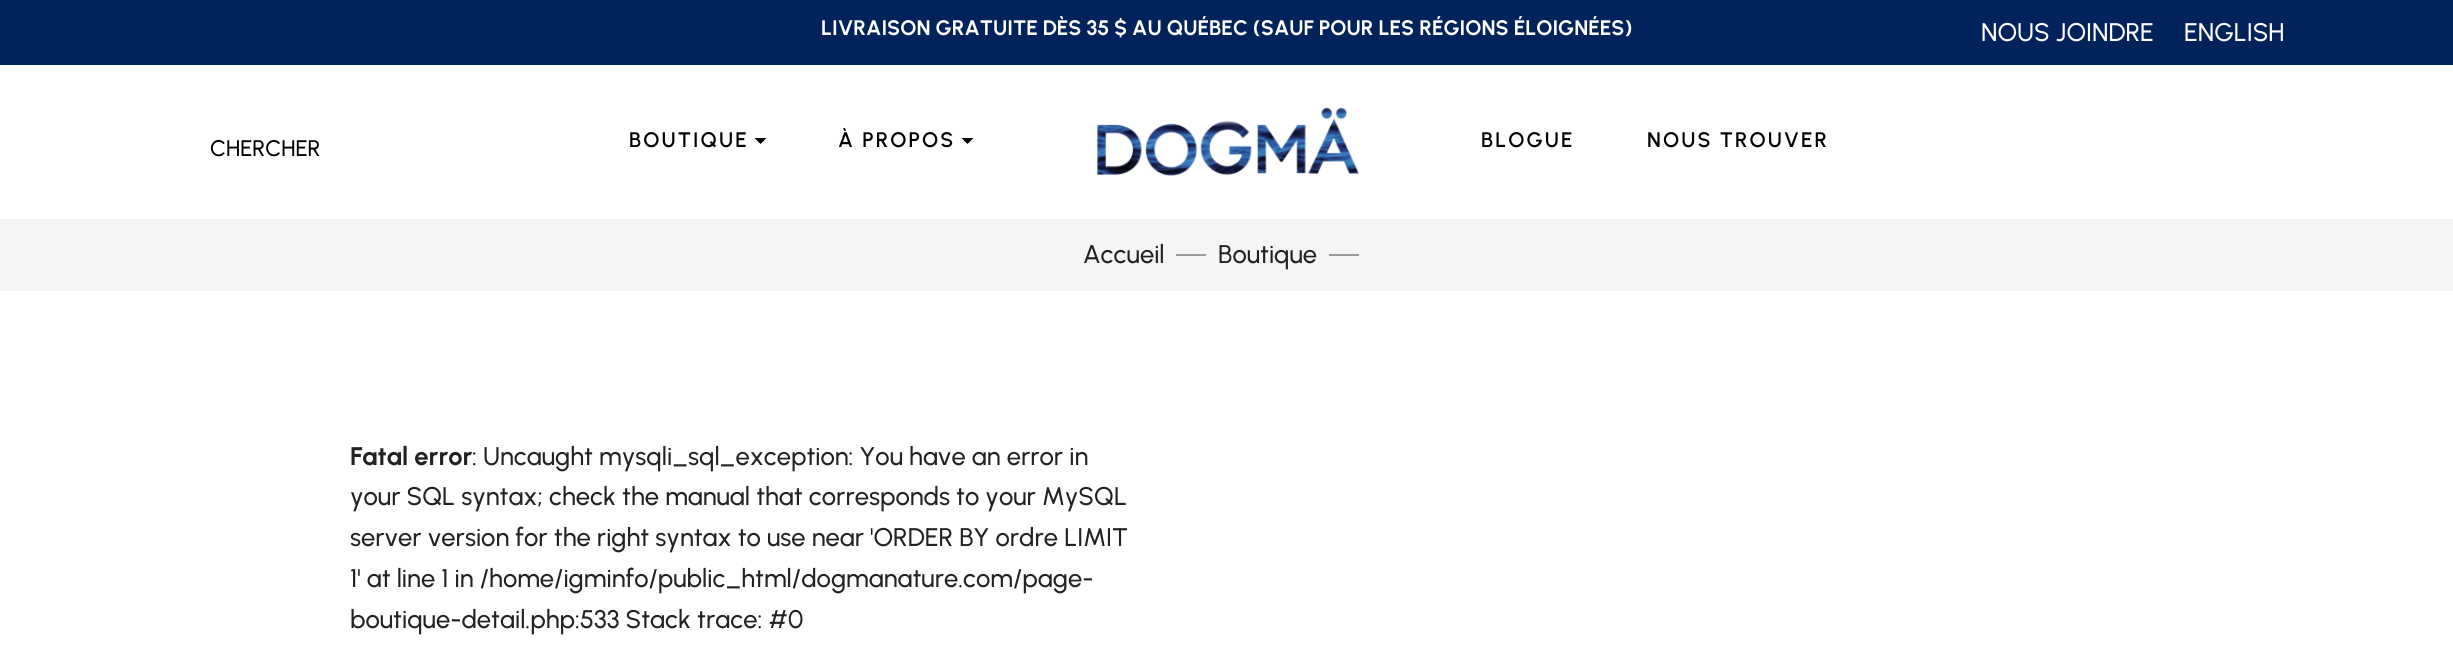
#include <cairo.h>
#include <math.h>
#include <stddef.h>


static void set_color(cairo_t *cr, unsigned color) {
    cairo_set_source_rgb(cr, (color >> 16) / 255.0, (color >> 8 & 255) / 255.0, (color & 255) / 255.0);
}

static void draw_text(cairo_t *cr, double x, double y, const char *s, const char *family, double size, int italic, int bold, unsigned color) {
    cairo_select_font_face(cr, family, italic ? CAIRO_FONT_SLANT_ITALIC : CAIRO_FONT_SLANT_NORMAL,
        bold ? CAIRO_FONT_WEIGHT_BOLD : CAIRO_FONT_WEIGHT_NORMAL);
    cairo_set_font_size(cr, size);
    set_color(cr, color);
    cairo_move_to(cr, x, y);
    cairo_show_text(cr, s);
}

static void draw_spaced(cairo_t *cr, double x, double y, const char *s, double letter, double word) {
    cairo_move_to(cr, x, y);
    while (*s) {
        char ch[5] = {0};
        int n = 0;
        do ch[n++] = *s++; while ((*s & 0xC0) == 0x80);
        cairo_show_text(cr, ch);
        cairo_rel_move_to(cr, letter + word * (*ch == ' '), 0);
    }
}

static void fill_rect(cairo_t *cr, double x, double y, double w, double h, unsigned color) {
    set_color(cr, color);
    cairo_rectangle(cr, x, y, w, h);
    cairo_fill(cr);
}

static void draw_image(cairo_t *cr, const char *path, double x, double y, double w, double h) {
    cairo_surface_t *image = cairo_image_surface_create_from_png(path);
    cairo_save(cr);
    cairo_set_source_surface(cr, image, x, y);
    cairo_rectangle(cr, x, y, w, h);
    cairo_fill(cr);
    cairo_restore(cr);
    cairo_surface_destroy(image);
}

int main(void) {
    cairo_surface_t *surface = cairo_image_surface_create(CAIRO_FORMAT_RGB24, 2453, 650);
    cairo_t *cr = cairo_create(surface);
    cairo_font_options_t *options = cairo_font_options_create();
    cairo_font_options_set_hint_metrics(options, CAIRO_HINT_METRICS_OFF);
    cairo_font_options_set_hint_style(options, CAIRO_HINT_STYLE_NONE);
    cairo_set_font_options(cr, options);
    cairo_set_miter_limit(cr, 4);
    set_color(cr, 0xFFFFFF);
    cairo_paint(cr);
    fill_rect(cr, 0, 0, 2453, 65, 0x02225B);
    draw_text(cr, 821, 35, "LIVRAISON GRATUITE DÈS 35 $ AU QUÉBEC (SAUF POUR LES RÉGIONS ÉLOIGNÉES)", "Urbanist", 21, 0, 1, 0xFFFFFF);
    draw_text(cr, 1981, 41, "NOUS JOINDRE", "Urbanist Medium", 25.5, 0, 0, 0xFFFFFF);
    draw_text(cr, 2184, 41, "ENGLISH", "Urbanist Medium", 25.5, 0, 0, 0xFFFFFF);
    draw_text(cr, 210, 156, "CHERCHER", "Urbanist Medium", 22.5, 0, 0, 0x000000);
    cairo_select_font_face(cr, "Urbanist SemiBold", CAIRO_FONT_SLANT_NORMAL, CAIRO_FONT_WEIGHT_NORMAL);
    cairo_set_font_size(cr, 21);
    draw_spaced(cr, 629, 147, "BOUTIQUE", 2.1, 0);
    cairo_new_path(cr);
    cairo_move_to(cr, 754.5, 138);
    cairo_line_to(cr, 766.5, 138);
    cairo_line_to(cr, 760.5, 144);
    cairo_close_path(cr);
    cairo_fill(cr);
    draw_spaced(cr, 838, 147, "À PROPOS", 2.1, 0);
    cairo_new_path(cr);
    cairo_move_to(cr, 961.5, 138);
    cairo_line_to(cr, 973.5, 138);
    cairo_line_to(cr, 967.5, 144);
    cairo_close_path(cr);
    cairo_fill(cr);
    draw_image(cr, "assets/img1.png", 1096, 107, 264, 69);
    draw_spaced(cr, 1481, 147, "BLOGUE", 2.1, 0);
    draw_spaced(cr, 1647, 147, "NOUS TROUVER", 2.1, 0);
    fill_rect(cr, 0, 219, 2453, 72, 0xF5F5F5);
    draw_text(cr, 1083, 263, "Accueil", "Urbanist Medium", 25.5, 0, 0, 0x222222);
    fill_rect(cr, 1176, 254, 30, 2, 0x9C9C9C);
    draw_text(cr, 1218, 263, "Boutique", "Urbanist Medium", 25.5, 0, 0, 0x222222);
    fill_rect(cr, 1329, 254, 30, 2, 0x9C9C9C);
    draw_text(cr, 350, 465, "Fatal error", "Urbanist", 25.5, 0, 1, 0x222222);
    draw_text(cr, 472, 465, ": Uncaught mysqli_sql_exception: You have an error in", "Urbanist Medium", 25.5, 0, 0, 0x222222);
    draw_text(cr, 350, 505, "your SQL syntax; check the manual that corresponds to your MySQL", "Urbanist Medium", 25.5, 0, 0, 0x222222);
    draw_text(cr, 350, 546, "server version for the right syntax to use near 'ORDER BY ordre LIMIT", "Urbanist Medium", 25.5, 0, 0, 0x222222);
    draw_text(cr, 350, 587, "1' at line 1 in /home/igminfo/public_html/dogmanature.com/page-", "Urbanist Medium", 25.5, 0, 0, 0x222222);
    draw_text(cr, 350, 628, "boutique-detail.php:533 Stack trace: #0", "Urbanist Medium", 25.5, 0, 0, 0x222222);
    cairo_surface_write_to_png(surface, "output.png");
    cairo_font_options_destroy(options);
    cairo_destroy(cr);
    cairo_surface_destroy(surface);
    return 0;
}
